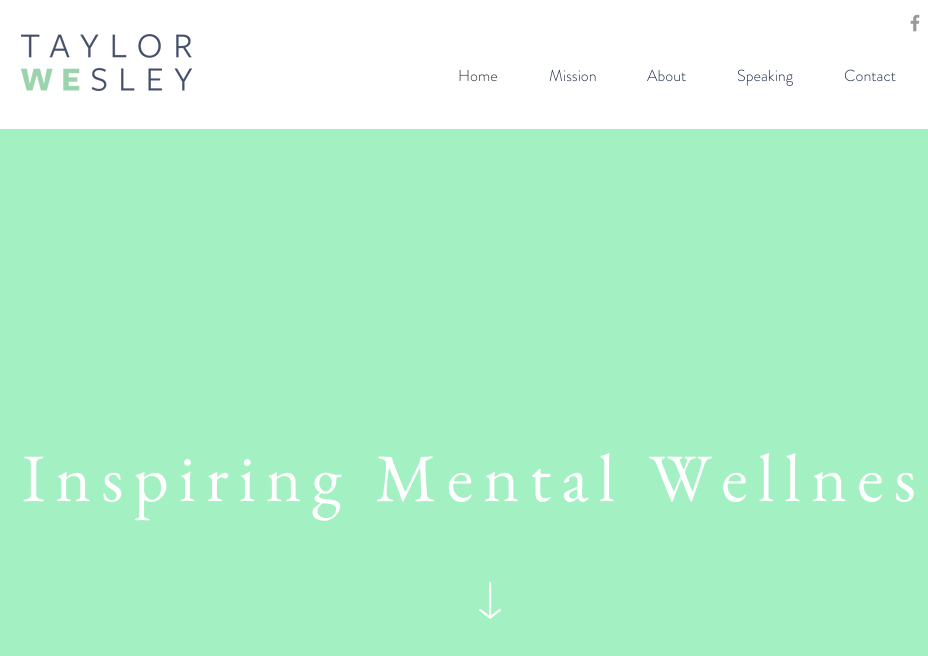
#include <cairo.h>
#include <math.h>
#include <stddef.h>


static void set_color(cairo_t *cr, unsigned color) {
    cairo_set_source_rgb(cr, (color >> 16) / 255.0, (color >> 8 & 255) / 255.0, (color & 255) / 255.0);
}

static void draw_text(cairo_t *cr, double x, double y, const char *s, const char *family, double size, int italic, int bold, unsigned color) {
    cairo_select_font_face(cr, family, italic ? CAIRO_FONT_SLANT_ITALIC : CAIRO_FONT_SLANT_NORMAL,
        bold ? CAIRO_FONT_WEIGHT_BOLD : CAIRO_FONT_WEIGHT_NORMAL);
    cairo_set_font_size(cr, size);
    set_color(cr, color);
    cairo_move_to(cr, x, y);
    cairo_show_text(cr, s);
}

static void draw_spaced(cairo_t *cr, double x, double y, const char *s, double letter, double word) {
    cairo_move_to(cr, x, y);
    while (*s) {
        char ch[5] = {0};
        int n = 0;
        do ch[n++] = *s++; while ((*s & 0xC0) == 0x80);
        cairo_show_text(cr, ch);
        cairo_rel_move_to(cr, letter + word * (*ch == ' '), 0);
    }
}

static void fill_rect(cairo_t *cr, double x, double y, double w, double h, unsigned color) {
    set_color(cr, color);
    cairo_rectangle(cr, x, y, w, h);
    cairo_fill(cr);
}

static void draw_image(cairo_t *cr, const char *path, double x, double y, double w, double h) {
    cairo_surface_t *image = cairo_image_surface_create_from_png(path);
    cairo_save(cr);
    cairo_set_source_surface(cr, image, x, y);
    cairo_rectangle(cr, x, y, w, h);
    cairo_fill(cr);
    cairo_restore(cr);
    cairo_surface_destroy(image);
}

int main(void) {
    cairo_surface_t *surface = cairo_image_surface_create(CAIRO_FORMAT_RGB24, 928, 656);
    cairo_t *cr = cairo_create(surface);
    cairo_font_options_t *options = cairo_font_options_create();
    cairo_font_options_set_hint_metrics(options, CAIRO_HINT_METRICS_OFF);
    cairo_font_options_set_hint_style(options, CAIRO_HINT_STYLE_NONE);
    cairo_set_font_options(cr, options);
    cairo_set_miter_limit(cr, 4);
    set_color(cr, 0xFFFFFF);
    cairo_paint(cr);
    draw_image(cr, "assets/img1.png", 910, 14, 10, 18);
    draw_image(cr, "assets/img2.png", 21, 34, 171, 57);
    draw_text(cr, 458, 81, "Home", "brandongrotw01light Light", 16, 0, 0, 0x333333);
    draw_text(cr, 549, 81, "Mission", "brandongrotw01light Light", 16, 0, 0, 0x23304A);
    draw_text(cr, 647, 81, "About", "brandongrotw01light Light", 16, 0, 0, 0x23304A);
    draw_text(cr, 737, 81, "Speaking", "brandongrotw01light Light", 16, 0, 0, 0x23304A);
    draw_text(cr, 844, 81, "Contact", "brandongrotw01light Light", 16, 0, 0, 0x23304A);
    fill_rect(cr, 0, 129, 928, 527, 0xA3F0C2);
    cairo_select_font_face(cr, "EB Garamond", CAIRO_FONT_SLANT_NORMAL, CAIRO_FONT_WEIGHT_NORMAL);
    cairo_set_font_size(cr, 68);
    set_color(cr, 0xFFFFFF);
    draw_spaced(cr, 22, 501, "Inspiring Mental Wellnes", 10.2, 0);
    draw_image(cr, "assets/img3.png", 479, 581, 22, 38);
    cairo_surface_write_to_png(surface, "output.png");
    cairo_font_options_destroy(options);
    cairo_destroy(cr);
    cairo_surface_destroy(surface);
    return 0;
}
